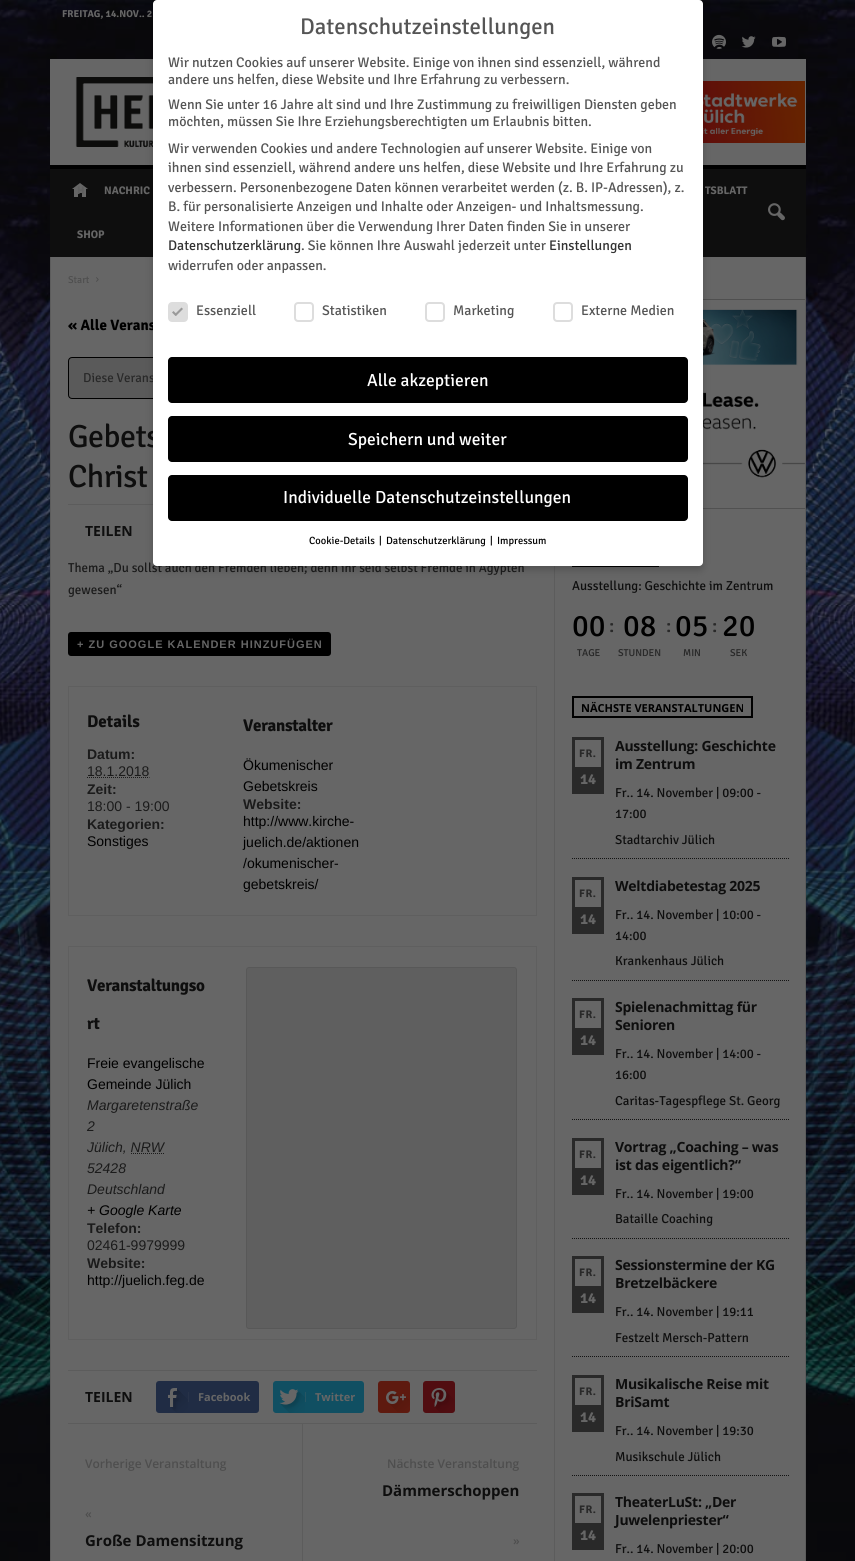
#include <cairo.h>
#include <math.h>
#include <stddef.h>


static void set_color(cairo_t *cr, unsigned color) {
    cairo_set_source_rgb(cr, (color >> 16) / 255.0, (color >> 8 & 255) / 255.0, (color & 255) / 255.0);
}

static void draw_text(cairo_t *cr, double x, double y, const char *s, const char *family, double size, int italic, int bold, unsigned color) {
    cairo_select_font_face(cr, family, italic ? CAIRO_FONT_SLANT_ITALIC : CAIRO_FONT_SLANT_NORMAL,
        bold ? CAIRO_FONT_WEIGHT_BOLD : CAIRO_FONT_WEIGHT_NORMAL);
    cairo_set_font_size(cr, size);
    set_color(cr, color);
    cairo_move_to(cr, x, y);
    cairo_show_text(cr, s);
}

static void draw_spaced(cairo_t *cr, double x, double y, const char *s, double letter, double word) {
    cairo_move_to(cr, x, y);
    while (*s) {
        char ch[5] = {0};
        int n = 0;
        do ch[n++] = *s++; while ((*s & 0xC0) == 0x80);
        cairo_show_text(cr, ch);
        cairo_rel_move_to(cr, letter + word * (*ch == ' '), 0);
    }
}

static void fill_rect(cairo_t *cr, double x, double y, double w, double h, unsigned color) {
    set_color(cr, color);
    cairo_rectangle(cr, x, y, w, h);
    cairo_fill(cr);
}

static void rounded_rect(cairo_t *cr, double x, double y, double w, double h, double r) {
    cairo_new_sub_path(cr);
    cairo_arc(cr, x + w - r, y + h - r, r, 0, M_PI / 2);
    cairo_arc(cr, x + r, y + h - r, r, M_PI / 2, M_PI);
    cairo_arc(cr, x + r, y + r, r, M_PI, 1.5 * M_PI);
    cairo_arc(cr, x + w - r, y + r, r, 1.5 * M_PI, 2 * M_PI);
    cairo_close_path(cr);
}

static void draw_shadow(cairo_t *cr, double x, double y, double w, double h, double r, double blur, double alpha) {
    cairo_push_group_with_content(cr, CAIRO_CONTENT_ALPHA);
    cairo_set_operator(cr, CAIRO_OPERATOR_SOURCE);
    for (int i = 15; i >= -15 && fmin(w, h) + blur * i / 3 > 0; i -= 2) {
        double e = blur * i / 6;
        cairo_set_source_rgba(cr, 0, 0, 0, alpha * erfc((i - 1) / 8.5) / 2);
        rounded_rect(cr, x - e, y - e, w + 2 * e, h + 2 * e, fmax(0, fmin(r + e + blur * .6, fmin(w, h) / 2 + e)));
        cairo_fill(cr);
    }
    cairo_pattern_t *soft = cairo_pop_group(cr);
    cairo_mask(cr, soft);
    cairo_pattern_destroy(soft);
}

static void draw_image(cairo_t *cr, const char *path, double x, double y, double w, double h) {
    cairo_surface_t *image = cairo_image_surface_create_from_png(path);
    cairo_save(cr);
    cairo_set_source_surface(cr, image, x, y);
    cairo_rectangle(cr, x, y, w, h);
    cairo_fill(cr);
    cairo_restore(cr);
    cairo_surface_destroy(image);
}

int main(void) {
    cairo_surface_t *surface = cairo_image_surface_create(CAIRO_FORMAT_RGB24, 855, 1561);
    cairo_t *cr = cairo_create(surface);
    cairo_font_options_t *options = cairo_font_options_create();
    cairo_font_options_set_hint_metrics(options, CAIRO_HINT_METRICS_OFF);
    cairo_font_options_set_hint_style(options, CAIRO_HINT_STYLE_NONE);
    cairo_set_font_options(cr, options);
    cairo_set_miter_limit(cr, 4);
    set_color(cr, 0xFFFFFF);
    cairo_paint(cr);
    draw_image(cr, "assets/img1.png", 0, 0, 855, 1561);
    draw_text(cr, 62, 17, "FREITAG, 14.NOV.. 2", "Signika", 10, 0, 1, 0x666666);
    draw_image(cr, "assets/img2.png", 712, 34, 14, 15);
    draw_image(cr, "assets/img3.png", 741, 36, 15, 12);
    draw_image(cr, "assets/img4.png", 772, 36, 14, 11);
    fill_rect(cr, 50, 59, 756, 106, 0x666666);
    draw_image(cr, "assets/img5.png", 75, 77, 78, 70);
    draw_image(cr, "assets/img6.png", 703, 81, 102, 62);
    fill_rect(cr, 50, 169, 756, 88, 0x0E0E0E);
    fill_rect(cr, 50, 165, 756, 4, 0x000000);
    draw_image(cr, "assets/img7.png", 72, 183, 16, 14);
    draw_text(cr, 77, 194, "H", "Signika", 11, 0, 1, 0x5F5F5F);
    draw_text(cr, 104, 194, "NACHRIC", "Signika", 11, 0, 1, 0x666666);
    draw_text(cr, 705, 194, "TSBLATT", "Signika", 11, 0, 1, 0x666666);
    draw_text(cr, 77, 238, "SHOP", "Signika", 11, 0, 1, 0x666666);
    draw_image(cr, "assets/img8.png", 768, 203, 17, 18);
    fill_rect(cr, 51, 257, 754, 1304, 0x666666);
    fill_rect(cr, 50, 257, 1, 1304, 0x5C5C5C);
    draw_text(cr, 68, 283, "Start", "Signika", 10, 0, 0, 0x4E4E4E);
    draw_image(cr, "assets/img9.png", 96, 277, 3, 5);
    draw_text(cr, 68, 330, "« Alle Verans", "Signika", 15, 0, 1, 0x000000);
    set_color(cr, 0x5A5A5A);
    rounded_rect(cr, 68.5, 357.5, 468, 41, 3.5);
    cairo_fill_preserve(cr);
    set_color(cr, 0x000000);
    cairo_set_line_width(cr, 1);
    cairo_stroke(cr);
    draw_text(cr, 83, 382, "Diese Verans", "Signika", 13, 0, 0, 0x292929);
    cairo_set_font_size(cr, 32);
    set_color(cr, 0x0E0E0E);
    draw_spaced(cr, 68, 447, "Gebets", -0.5, 0);
    draw_spaced(cr, 68, 487, "Christ", -0.5, 0);
    fill_rect(cr, 68, 504, 85, 1, 0x5C5C5C);
    draw_text(cr, 85, 536, "TEILEN", "Open Sans", 14, 0, 1, 0x0E0E0E);
    draw_text(cr, 68, 572, "Thema „Du sollst auch den Fremden lieben; denn ihr seid selbst Fremde in Ägypten", "Signika", 13, 0, 0, 0x1B1B1B);
    draw_text(cr, 68, 594, "gewesen“", "Signika", 13, 0, 0, 0x1B1B1B);
    set_color(cr, 0x000000);
    rounded_rect(cr, 68, 632, 263, 24, 3);
    cairo_fill(cr);
    cairo_select_font_face(cr, "Liberation Sans", CAIRO_FONT_SLANT_NORMAL, CAIRO_FONT_WEIGHT_BOLD);
    cairo_set_font_size(cr, 11);
    set_color(cr, 0x666666);
    draw_spaced(cr, 77, 648, "+ ZU GOOGLE KALENDER HINZUFÜGEN", 1, 0);
    cairo_rectangle(cr, 68.5, 686.5, 468, 229);
    set_color(cr, 0x5F5F5F);
    cairo_stroke(cr);
    draw_text(cr, 87, 727, "Details", "Signika", 17, 0, 1, 0x0E0E0E);
    draw_text(cr, 87, 759, "Datum:", "Liberation Sans", 14, 0, 1, 0x1B1B1B);
    draw_text(cr, 87, 776, "18.1.2018", "Liberation Sans", 14, 0, 0, 0x1B1B1B);
    cairo_new_path(cr);
    cairo_move_to(cr, 87, 777.5);
    cairo_line_to(cr, 149.5, 777.5);
    cairo_set_dash(cr, (double[]){1, 1}, 2, 0);
    cairo_stroke(cr);
    draw_text(cr, 87, 794, "Zeit:", "Liberation Sans", 14, 0, 1, 0x1B1B1B);
    draw_text(cr, 87, 811, "18:00 - 19:00", "Liberation Sans", 14, 0, 0, 0x1B1B1B);
    draw_text(cr, 87, 829, "Kategorien:", "Liberation Sans", 14, 0, 1, 0x1B1B1B);
    draw_text(cr, 87, 846, "Sonstiges", "Liberation Sans", 14, 0, 0, 0x000000);
    cairo_select_font_face(cr, "Signika", CAIRO_FONT_SLANT_NORMAL, CAIRO_FONT_WEIGHT_BOLD);
    cairo_set_font_size(cr, 17);
    set_color(cr, 0x0E0E0E);
    draw_spaced(cr, 243, 731, "Veranstalter", -0.3, 0);
    draw_text(cr, 243, 770, "Ökumenischer", "Liberation Sans", 14, 0, 0, 0x000000);
    draw_text(cr, 243, 791, "Gebetskreis", "Liberation Sans", 14, 0, 0, 0x000000);
    draw_text(cr, 243, 809, "Website:", "Liberation Sans", 14, 0, 1, 0x1B1B1B);
    draw_text(cr, 243, 826, "http://www.kirche-", "Liberation Sans", 14, 0, 0, 0x000000);
    draw_text(cr, 243, 847, "juelich.de/aktionen", "Liberation Sans", 14, 0, 0, 0x000000);
    draw_text(cr, 243, 868, "/okumenischer-", "Liberation Sans", 14, 0, 0, 0x000000);
    draw_text(cr, 243, 889, "gebetskreis/", "Liberation Sans", 14, 0, 0, 0x000000);
    cairo_rectangle(cr, 68.5, 946.5, 468, 393);
    set_color(cr, 0x5F5F5F);
    cairo_set_dash(cr, NULL, 0, 0);
    cairo_stroke(cr);
    cairo_select_font_face(cr, "Signika", CAIRO_FONT_SLANT_NORMAL, CAIRO_FONT_WEIGHT_BOLD);
    cairo_set_font_size(cr, 17);
    set_color(cr, 0x0E0E0E);
    draw_spaced(cr, 87, 991, "Veranstaltungso", -0.3, 0);
    draw_spaced(cr, 87, 1029, "rt", -0.3, 0);
    draw_text(cr, 87, 1068, "Freie evangelische", "Liberation Sans", 14, 0, 0, 0x000000);
    draw_text(cr, 87, 1089, "Gemeinde Jülich", "Liberation Sans", 14, 0, 0, 0x000000);
    draw_text(cr, 87, 1110, "Margaretenstraße", "Liberation Sans", 14, 1, 0, 0x1B1B1B);
    draw_text(cr, 87, 1131, "2", "Liberation Sans", 14, 1, 0, 0x1B1B1B);
    draw_text(cr, 87, 1152, "Jülich, NRW", "Liberation Sans", 14, 1, 0, 0x1B1B1B);
    cairo_new_path(cr);
    cairo_move_to(cr, 131, 1153.5);
    cairo_line_to(cr, 164, 1153.5);
    cairo_set_dash(cr, (double[]){1, 1}, 2, 0);
    cairo_stroke(cr);
    draw_text(cr, 87, 1173, "52428", "Liberation Sans", 14, 1, 0, 0x1B1B1B);
    draw_text(cr, 87, 1194, "Deutschland", "Liberation Sans", 14, 1, 0, 0x1B1B1B);
    draw_text(cr, 87, 1215, "+ Google Karte", "Liberation Sans", 14, 1, 0, 0x000000);
    draw_text(cr, 87, 1233, "Telefon:", "Liberation Sans", 14, 0, 1, 0x1B1B1B);
    draw_text(cr, 87, 1250, "02461-9979999", "Liberation Sans", 14, 0, 0, 0x1B1B1B);
    draw_text(cr, 87, 1268, "Website:", "Liberation Sans", 14, 0, 1, 0x1B1B1B);
    draw_text(cr, 87, 1285, "http://juelich.feg.de", "Liberation Sans", 14, 0, 0, 0x000000);
    set_color(cr, 0x5F5F5F);
    rounded_rect(cr, 246.5, 967.5, 270, 361, 2.5);
    cairo_fill_preserve(cr);
    set_color(cr, 0x585858);
    cairo_set_dash(cr, NULL, 0, 0);
    cairo_stroke(cr);
    fill_rect(cr, 68, 1370, 469, 1, 0x5C5C5C);
    draw_text(cr, 85, 1402, "TEILEN", "Open Sans", 14, 0, 1, 0x0E0E0E);
    set_color(cr, 0x202C44);
    rounded_rect(cr, 156, 1381, 103, 32, 3);
    cairo_fill(cr);
    draw_image(cr, "assets/img10.png", 168, 1388, 20, 25);
    fill_rect(cr, 188, 1392, 1, 10, 0x273248);
    draw_text(cr, 198, 1401, "Facebook", "Open Sans", 11, 0, 1, 0x666666);
    set_color(cr, 0x104F62);
    rounded_rect(cr, 273, 1381, 91, 32, 3);
    cairo_fill(cr);
    draw_image(cr, "assets/img11.png", 279, 1389, 26, 24);
    fill_rect(cr, 305, 1392, 1, 10, 0x265563);
    draw_text(cr, 315, 1401, "Twitter", "Open Sans", 11, 0, 1, 0x666666);
    set_color(cr, 0x5E1A0F);
    rounded_rect(cr, 378, 1381, 32, 32, 3);
    cairo_fill(cr);
    draw_image(cr, "assets/img12.png", 386, 1391, 24, 21);
    set_color(cr, 0x510D11);
    rounded_rect(cr, 423, 1381, 32, 32, 3);
    cairo_fill(cr);
    draw_image(cr, "assets/img13.png", 431, 1388, 24, 25);
    fill_rect(cr, 68, 1423, 469, 1, 0x5C5C5C);
    draw_text(cr, 85, 1468, "Vorherige Veranstaltung", "Open Sans SemiBold", 12, 0, 0, 0x4E4E4E);
    draw_text(cr, 85, 1518, "«", "Open Sans SemiBold", 12, 0, 0, 0x4E4E4E);
    draw_text(cr, 85, 1546, "Große Damensitzung", "Open Sans", 15, 0, 1, 0x0E0E0E);
    fill_rect(cr, 302, 1424, 1, 137, 0x5C5C5C);
    draw_text(cr, 387, 1468, "Nächste Veranstaltung", "Open Sans SemiBold", 12, 0, 0, 0x4E4E4E);
    draw_text(cr, 382, 1496, "Dämmerschoppen", "Open Sans", 15, 0, 1, 0x0E0E0E);
    draw_text(cr, 513, 1545, "»", "Open Sans SemiBold", 12, 0, 0, 0x4E4E4E);
    fill_rect(cr, 554, 566, 1, 995, 0x5C5C5C);
    cairo_rectangle(cr, 555.5, 299.5, 250, 209);
    set_color(cr, 0x4F4F4F);
    cairo_stroke(cr);
    draw_image(cr, "assets/img14.png", 703, 300, 102, 209);
    cairo_rectangle(cr, 573, 546, 85, 20);
    set_color(cr, 0x000000);
    cairo_set_line_width(cr, 2);
    cairo_stroke(cr);
    draw_text(cr, 572, 590, "Ausstellung: Geschichte im Zentrum", "Signika", 13, 0, 0, 0x0E0E0E);
    draw_text(cr, 572, 636, "00", "Signika", 31, 0, 0, 0x000000);
    draw_text(cr, 577, 656, "TAGE", "Signika Medium", 10, 0, 0, 0x292929);
    draw_text(cr, 609, 632, ":", "Signika", 20, 0, 0, 0x292929);
    draw_text(cr, 623, 636, "08", "Signika", 31, 0, 0, 0x000000);
    draw_text(cr, 618, 656, "STUNDEN", "Signika Medium", 10, 0, 0, 0x292929);
    draw_text(cr, 666, 632, ":", "Signika", 20, 0, 0, 0x292929);
    draw_text(cr, 675, 636, "05", "Signika", 31, 0, 0, 0x000000);
    draw_text(cr, 683, 656, "MIN", "Signika Medium", 10, 0, 0, 0x292929);
    draw_text(cr, 712, 632, ":", "Signika", 20, 0, 0, 0x292929);
    draw_text(cr, 722, 636, "20", "Signika", 31, 0, 0, 0x000000);
    draw_text(cr, 730, 656, "SEK", "Signika Medium", 10, 0, 0, 0x292929);
    cairo_rectangle(cr, 573, 697, 179, 20);
    set_color(cr, 0x000000);
    cairo_stroke(cr);
    draw_text(cr, 581, 712, "NÄCHSTE VERANSTALTUNGEN", "Open Sans", 11, 0, 1, 0x000000);
    cairo_new_path(cr);
    cairo_move_to(cr, 572, 858.5);
    cairo_line_to(cr, 789, 858.5);
    set_color(cr, 0x131313);
    cairo_set_line_width(cr, 1);
    cairo_set_dash(cr, (double[]){1, 1}, 2, 0);
    cairo_stroke(cr);
    fill_rect(cr, 572, 737, 32, 57, 0x292929);
    fill_rect(cr, 575, 740, 26, 27, 0x666666);
    cairo_select_font_face(cr, "Signika", CAIRO_FONT_SLANT_NORMAL, CAIRO_FONT_WEIGHT_BOLD);
    set_color(cr, 0x292929);
    draw_spaced(cr, 579, 757, "FR.", 0.5, 0);
    draw_text(cr, 580, 784, "14", "Signika", 15, 0, 1, 0x666666);
    cairo_select_font_face(cr, "Open Sans", CAIRO_FONT_SLANT_NORMAL, CAIRO_FONT_WEIGHT_BOLD);
    cairo_set_font_size(cr, 14);
    set_color(cr, 0x0E0E0E);
    draw_spaced(cr, 615, 751, "Ausstellung: Geschichte", -0.25, 0);
    draw_spaced(cr, 615, 769, "im Zentrum", -0.25, 0);
    draw_text(cr, 615, 797, "Fr.. 14. November | 09:00 -", "Signika", 13, 0, 0, 0x0E0E0E);
    draw_text(cr, 615, 818, "17:00", "Signika", 13, 0, 0, 0x0E0E0E);
    draw_text(cr, 615, 844, "Stadtarchiv Jülich", "Signika", 13, 0, 0, 0x0E0E0E);
    cairo_new_path(cr);
    cairo_move_to(cr, 572, 980.5);
    cairo_line_to(cr, 789, 980.5);
    set_color(cr, 0x131313);
    cairo_stroke(cr);
    fill_rect(cr, 572, 877, 32, 57, 0x292929);
    fill_rect(cr, 575, 880, 26, 27, 0x666666);
    cairo_select_font_face(cr, "Signika", CAIRO_FONT_SLANT_NORMAL, CAIRO_FONT_WEIGHT_BOLD);
    cairo_set_font_size(cr, 11);
    set_color(cr, 0x292929);
    draw_spaced(cr, 579, 897, "FR.", 0.5, 0);
    draw_text(cr, 580, 924, "14", "Signika", 15, 0, 1, 0x666666);
    cairo_select_font_face(cr, "Open Sans", CAIRO_FONT_SLANT_NORMAL, CAIRO_FONT_WEIGHT_BOLD);
    cairo_set_font_size(cr, 14);
    set_color(cr, 0x0E0E0E);
    draw_spaced(cr, 615, 891, "Weltdiabetestag 2025", -0.25, 0);
    draw_text(cr, 615, 919, "Fr.. 14. November | 10:00 -", "Signika", 13, 0, 0, 0x0E0E0E);
    draw_text(cr, 615, 940, "14:00", "Signika", 13, 0, 0, 0x0E0E0E);
    draw_text(cr, 615, 965, "Krankenhaus Jülich", "Signika", 13, 0, 0, 0x0E0E0E);
    cairo_new_path(cr);
    cairo_move_to(cr, 572, 1119.5);
    cairo_line_to(cr, 789, 1119.5);
    set_color(cr, 0x131313);
    cairo_stroke(cr);
    fill_rect(cr, 572, 998, 32, 57, 0x292929);
    fill_rect(cr, 575, 1001, 26, 27, 0x666666);
    cairo_select_font_face(cr, "Signika", CAIRO_FONT_SLANT_NORMAL, CAIRO_FONT_WEIGHT_BOLD);
    cairo_set_font_size(cr, 11);
    set_color(cr, 0x292929);
    draw_spaced(cr, 579, 1018, "FR.", 0.5, 0);
    draw_text(cr, 580, 1045, "14", "Signika", 15, 0, 1, 0x666666);
    cairo_select_font_face(cr, "Open Sans", CAIRO_FONT_SLANT_NORMAL, CAIRO_FONT_WEIGHT_BOLD);
    cairo_set_font_size(cr, 14);
    set_color(cr, 0x0E0E0E);
    draw_spaced(cr, 615, 1012, "Spielenachmittag für", -0.25, 0);
    draw_spaced(cr, 615, 1030, "Senioren", -0.25, 0);
    draw_text(cr, 615, 1058, "Fr.. 14. November | 14:00 -", "Signika", 13, 0, 0, 0x0E0E0E);
    draw_text(cr, 615, 1079, "16:00", "Signika", 13, 0, 0, 0x0E0E0E);
    draw_text(cr, 615, 1105, "Caritas-Tagespflege St. Georg", "Signika", 13, 0, 0, 0x0E0E0E);
    cairo_new_path(cr);
    cairo_move_to(cr, 572, 1238.5);
    cairo_line_to(cr, 789, 1238.5);
    set_color(cr, 0x131313);
    cairo_stroke(cr);
    fill_rect(cr, 572, 1138, 32, 57, 0x292929);
    fill_rect(cr, 575, 1141, 26, 27, 0x666666);
    cairo_select_font_face(cr, "Signika", CAIRO_FONT_SLANT_NORMAL, CAIRO_FONT_WEIGHT_BOLD);
    cairo_set_font_size(cr, 11);
    set_color(cr, 0x292929);
    draw_spaced(cr, 579, 1158, "FR.", 0.5, 0);
    draw_text(cr, 580, 1185, "14", "Signika", 15, 0, 1, 0x666666);
    cairo_select_font_face(cr, "Open Sans", CAIRO_FONT_SLANT_NORMAL, CAIRO_FONT_WEIGHT_BOLD);
    cairo_set_font_size(cr, 14);
    set_color(cr, 0x0E0E0E);
    draw_spaced(cr, 615, 1152, "Vortrag „Coaching – was", -0.25, 0);
    draw_spaced(cr, 615, 1170, "ist das eigentlich?“", -0.25, 0);
    draw_text(cr, 615, 1198, "Fr.. 14. November | 19:00", "Signika", 13, 0, 0, 0x0E0E0E);
    draw_text(cr, 615, 1223, "Bataille Coaching", "Signika", 13, 0, 0, 0x0E0E0E);
    cairo_new_path(cr);
    cairo_move_to(cr, 572, 1356.5);
    cairo_line_to(cr, 789, 1356.5);
    set_color(cr, 0x131313);
    cairo_stroke(cr);
    fill_rect(cr, 572, 1256, 32, 57, 0x292929);
    fill_rect(cr, 575, 1259, 26, 27, 0x666666);
    cairo_select_font_face(cr, "Signika", CAIRO_FONT_SLANT_NORMAL, CAIRO_FONT_WEIGHT_BOLD);
    cairo_set_font_size(cr, 11);
    set_color(cr, 0x292929);
    draw_spaced(cr, 579, 1276, "FR.", 0.5, 0);
    draw_text(cr, 580, 1303, "14", "Signika", 15, 0, 1, 0x666666);
    cairo_select_font_face(cr, "Open Sans", CAIRO_FONT_SLANT_NORMAL, CAIRO_FONT_WEIGHT_BOLD);
    cairo_set_font_size(cr, 14);
    set_color(cr, 0x0E0E0E);
    draw_spaced(cr, 615, 1270, "Sessionstermine der KG", -0.25, 0);
    draw_spaced(cr, 615, 1288, "Bretzelbäckere", -0.25, 0);
    draw_text(cr, 615, 1316, "Fr.. 14. November | 19:11", "Signika", 13, 0, 0, 0x0E0E0E);
    draw_text(cr, 615, 1342, "Festzelt Mersch-Pattern", "Signika", 13, 0, 0, 0x0E0E0E);
    cairo_new_path(cr);
    cairo_move_to(cr, 572, 1475.5);
    cairo_line_to(cr, 789, 1475.5);
    set_color(cr, 0x131313);
    cairo_stroke(cr);
    fill_rect(cr, 572, 1375, 32, 57, 0x292929);
    fill_rect(cr, 575, 1378, 26, 27, 0x666666);
    cairo_select_font_face(cr, "Signika", CAIRO_FONT_SLANT_NORMAL, CAIRO_FONT_WEIGHT_BOLD);
    cairo_set_font_size(cr, 11);
    set_color(cr, 0x292929);
    draw_spaced(cr, 579, 1395, "FR.", 0.5, 0);
    draw_text(cr, 580, 1422, "14", "Signika", 15, 0, 1, 0x666666);
    cairo_select_font_face(cr, "Open Sans", CAIRO_FONT_SLANT_NORMAL, CAIRO_FONT_WEIGHT_BOLD);
    cairo_set_font_size(cr, 14);
    set_color(cr, 0x0E0E0E);
    draw_spaced(cr, 615, 1389, "Musikalische Reise mit", -0.25, 0);
    draw_spaced(cr, 615, 1407, "BriSamt", -0.25, 0);
    draw_text(cr, 615, 1435, "Fr.. 14. November | 19:30", "Signika", 13, 0, 0, 0x0E0E0E);
    draw_text(cr, 615, 1461, "Musikschule Jülich", "Signika", 13, 0, 0, 0x0E0E0E);
    fill_rect(cr, 572, 1493, 32, 57, 0x292929);
    fill_rect(cr, 575, 1496, 26, 27, 0x666666);
    cairo_select_font_face(cr, "Signika", CAIRO_FONT_SLANT_NORMAL, CAIRO_FONT_WEIGHT_BOLD);
    cairo_set_font_size(cr, 11);
    set_color(cr, 0x292929);
    draw_spaced(cr, 579, 1513, "FR.", 0.5, 0);
    draw_text(cr, 580, 1540, "14", "Signika", 15, 0, 1, 0x666666);
    cairo_select_font_face(cr, "Open Sans", CAIRO_FONT_SLANT_NORMAL, CAIRO_FONT_WEIGHT_BOLD);
    cairo_set_font_size(cr, 14);
    set_color(cr, 0x0E0E0E);
    draw_spaced(cr, 615, 1507, "TheaterLuSt: „Der", -0.25, 0);
    draw_spaced(cr, 615, 1525, "Juwelenpriester“", -0.25, 0);
    draw_text(cr, 615, 1553, "Fr.. 14. November | 20:00", "Signika", 13, 0, 0, 0x0E0E0E);
    fill_rect(cr, 805, 257, 1, 1304, 0x5C5C5C);
    set_color(cr, 0x000000);
    draw_shadow(cr, 153, 4, 550, 566, 4, 4, 0.2);
    set_color(cr, 0xFFFFFF);
    rounded_rect(cr, 153, 0, 550, 566, 4);
    cairo_fill(cr);
    draw_text(cr, 300, 34, "Datenschutzeinstellungen", "Signika", 22.75, 0, 0, 0x555555);
    draw_text(cr, 168, 67, "Wir nutzen Cookies auf unserer Website. Einige von ihnen sind essenziell, während", "Signika", 14, 0, 0, 0x555555);
    draw_text(cr, 168, 84, "andere uns helfen, diese Website und Ihre Erfahrung zu verbessern.", "Signika", 14, 0, 0, 0x555555);
    draw_text(cr, 168, 109, "Wenn Sie unter 16 Jahre alt sind und Ihre Zustimmung zu freiwilligen Diensten geben", "Signika", 14, 0, 0, 0x555555);
    draw_text(cr, 168, 126, "möchten, müssen Sie Ihre Erziehungsberechtigten um Erlaubnis bitten.", "Signika", 14, 0, 0, 0x555555);
    draw_text(cr, 168, 153, "Wir verwenden Cookies und andere Technologien auf unserer Website. Einige von", "Signika", 14, 0, 0, 0x555555);
    draw_text(cr, 168, 172, "ihnen sind essenziell, während andere uns helfen, diese Website und Ihre Erfahrung zu", "Signika", 14, 0, 0, 0x555555);
    draw_text(cr, 168, 192, "verbessern. Personenbezogene Daten können verarbeitet werden (z. B. IP-Adressen), z.", "Signika", 14, 0, 0, 0x555555);
    draw_text(cr, 168, 211, "B. für personalisierte Anzeigen und Inhalte oder Anzeigen- und Inhaltsmessung.", "Signika", 14, 0, 0, 0x555555);
    draw_text(cr, 168, 231, "Weitere Informationen über die Verwendung Ihrer Daten finden Sie in unserer", "Signika", 14, 0, 0, 0x555555);
    draw_text(cr, 168, 250, "Datenschutzerklärung", "Signika", 14, 0, 0, 0x333333);
    draw_text(cr, 301, 250, ". Sie können Ihre Auswahl jederzeit unter", "Signika", 14, 0, 0, 0x555555);
    draw_text(cr, 549, 250, "Einstellungen", "Signika", 14, 0, 0, 0x333333);
    draw_text(cr, 168, 270, "widerrufen oder anpassen.", "Signika", 14, 0, 0, 0x555555);
    set_color(cr, 0xDDDDDD);
    rounded_rect(cr, 169, 303, 18, 18, 3);
    cairo_fill_preserve(cr);
    cairo_set_line_width(cr, 2);
    cairo_set_dash(cr, NULL, 0, 0);
    cairo_stroke(cr);
    set_color(cr, 0x999999);
    cairo_new_path(cr);
    cairo_move_to(cr, 181.5, 307.5);
    cairo_line_to(cr, 183, 309);
    cairo_line_to(cr, 176, 316);
    cairo_line_to(cr, 174.5, 314.5);
    cairo_close_path(cr);
    cairo_fill(cr);
    cairo_new_path(cr);
    cairo_move_to(cr, 173.5, 311);
    cairo_line_to(cr, 177, 314.5);
    cairo_line_to(cr, 175.5, 316);
    cairo_line_to(cr, 172, 312.5);
    cairo_close_path(cr);
    cairo_fill(cr);
    draw_text(cr, 196, 315, "Essenziell", "Signika", 14, 0, 0, 0x555555);
    rounded_rect(cr, 295, 303, 18, 18, 3);
    set_color(cr, 0xDDDDDD);
    cairo_stroke(cr);
    draw_text(cr, 322, 315, "Statistiken", "Signika", 14, 0, 0, 0x555555);
    rounded_rect(cr, 426, 303, 18, 18, 3);
    set_color(cr, 0xDDDDDD);
    cairo_stroke(cr);
    draw_text(cr, 453, 315, "Marketing", "Signika", 14, 0, 0, 0x555555);
    rounded_rect(cr, 554, 303, 18, 18, 3);
    set_color(cr, 0xDDDDDD);
    cairo_stroke(cr);
    draw_text(cr, 581, 315, "Externe Medien", "Signika", 14, 0, 0, 0x555555);
    set_color(cr, 0x000000);
    rounded_rect(cr, 168, 357, 520, 46, 4);
    cairo_fill(cr);
    draw_text(cr, 367, 386, "Alle akzeptieren", "Signika", 17.5, 0, 0, 0xFFFFFF);
    set_color(cr, 0x000000);
    rounded_rect(cr, 168, 416, 520, 46, 4);
    cairo_fill(cr);
    draw_text(cr, 348, 445, "Speichern und weiter", "Signika", 17.5, 0, 0, 0xFFFFFF);
    set_color(cr, 0x000000);
    rounded_rect(cr, 168, 475, 520, 46, 4);
    cairo_fill(cr);
    draw_text(cr, 283, 503, "Individuelle Datenschutzeinstellungen", "Signika", 17.5, 0, 0, 0xFFFFFF);
    draw_text(cr, 309, 544, "Cookie-Details", "Signika", 10.5, 0, 0, 0x000000);
    draw_text(cr, 379, 544, "|", "Signika", 10.5, 0, 0, 0x000000);
    draw_text(cr, 386, 544, "Datenschutzerklärung", "Signika", 10.5, 0, 0, 0x000000);
    draw_text(cr, 490, 544, "|", "Signika", 10.5, 0, 0, 0x000000);
    draw_text(cr, 497, 544, "Impressum", "Signika", 10.5, 0, 0, 0x000000);
    cairo_surface_write_to_png(surface, "output.png");
    cairo_font_options_destroy(options);
    cairo_destroy(cr);
    cairo_surface_destroy(surface);
    return 0;
}
